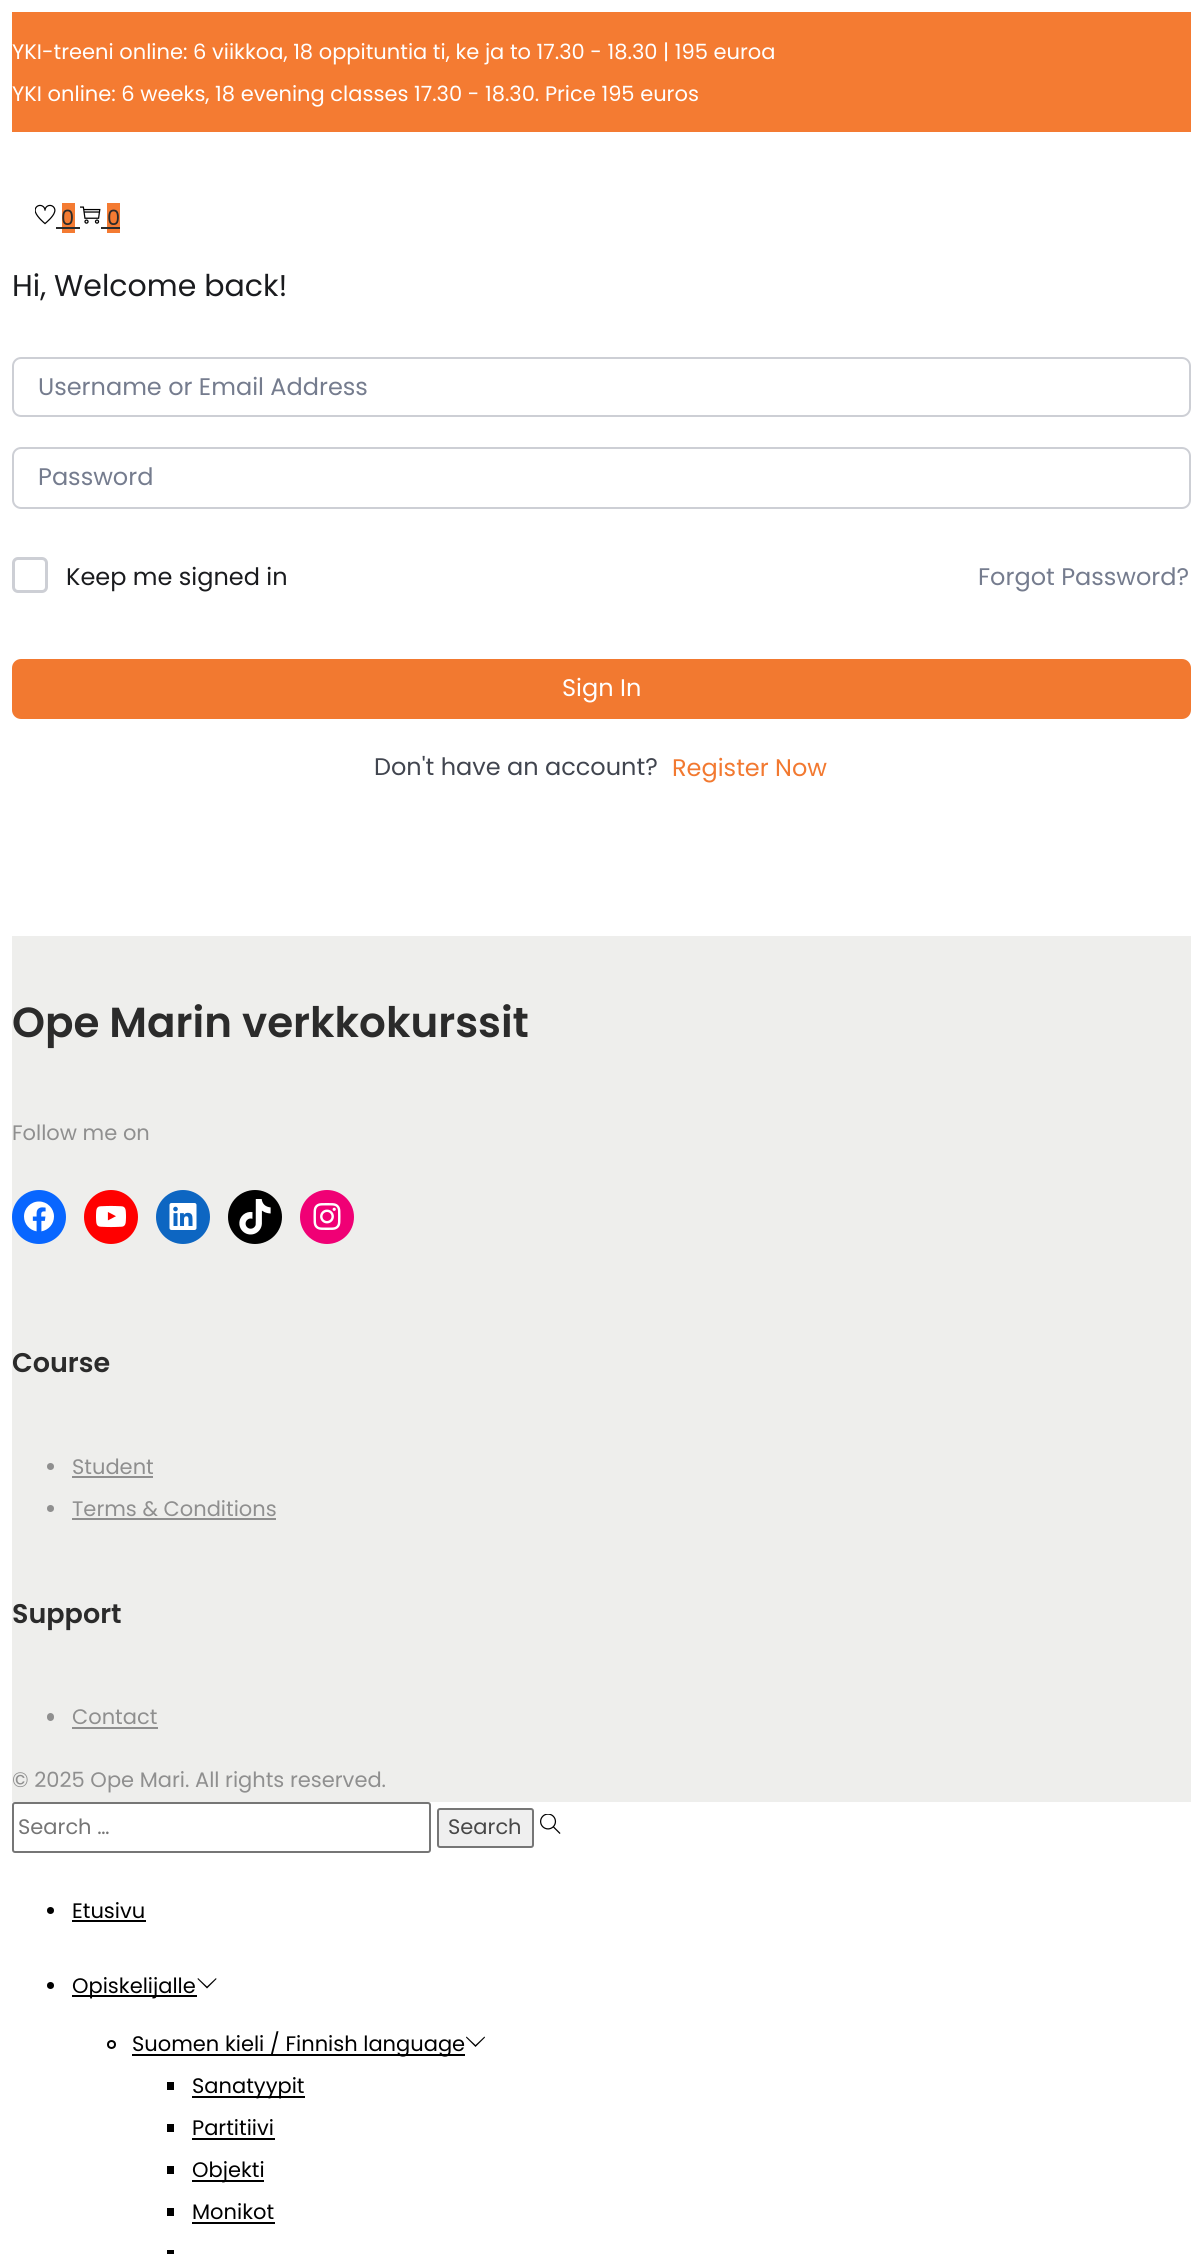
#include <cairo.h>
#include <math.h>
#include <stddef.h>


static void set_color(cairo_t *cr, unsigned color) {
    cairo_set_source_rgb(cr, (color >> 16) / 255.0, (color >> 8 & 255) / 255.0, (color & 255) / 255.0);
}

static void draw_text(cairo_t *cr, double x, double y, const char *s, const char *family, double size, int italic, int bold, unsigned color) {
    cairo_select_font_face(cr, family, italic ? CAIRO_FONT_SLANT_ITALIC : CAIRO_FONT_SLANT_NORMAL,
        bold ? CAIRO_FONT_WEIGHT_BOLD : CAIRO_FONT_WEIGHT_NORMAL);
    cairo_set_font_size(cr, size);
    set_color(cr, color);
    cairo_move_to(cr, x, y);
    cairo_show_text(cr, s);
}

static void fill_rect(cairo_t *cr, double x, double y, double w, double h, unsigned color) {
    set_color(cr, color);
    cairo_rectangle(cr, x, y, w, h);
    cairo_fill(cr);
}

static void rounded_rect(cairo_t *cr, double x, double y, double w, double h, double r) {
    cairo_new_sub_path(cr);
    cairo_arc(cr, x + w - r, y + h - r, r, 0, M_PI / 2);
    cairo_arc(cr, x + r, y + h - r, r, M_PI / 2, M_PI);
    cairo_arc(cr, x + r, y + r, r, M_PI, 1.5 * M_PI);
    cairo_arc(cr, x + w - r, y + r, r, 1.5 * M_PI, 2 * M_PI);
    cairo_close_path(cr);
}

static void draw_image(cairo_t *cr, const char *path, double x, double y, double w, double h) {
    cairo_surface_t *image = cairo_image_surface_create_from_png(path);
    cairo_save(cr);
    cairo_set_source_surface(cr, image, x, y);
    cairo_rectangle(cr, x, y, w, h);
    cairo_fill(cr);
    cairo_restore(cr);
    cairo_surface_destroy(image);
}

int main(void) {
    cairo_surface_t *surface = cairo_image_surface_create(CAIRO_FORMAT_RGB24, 1203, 2254);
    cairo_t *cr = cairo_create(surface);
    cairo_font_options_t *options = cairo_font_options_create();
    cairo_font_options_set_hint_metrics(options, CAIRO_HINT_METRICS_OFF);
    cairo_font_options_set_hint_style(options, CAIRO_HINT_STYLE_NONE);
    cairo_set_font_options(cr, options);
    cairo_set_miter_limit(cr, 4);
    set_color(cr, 0xFFFFFF);
    cairo_paint(cr);
    fill_rect(cr, 12, 12, 1179, 120, 0xF47B32);
    draw_text(cr, 12, 59, "YKI-treeni online: 6 viikkoa, 18 oppituntia ti, ke ja to 17.30 - 18.30 | 195 euroa", "Poppins", 21, 0, 0, 0xFFFFFF);
    draw_text(cr, 12, 101, "YKI online: 6 weeks, 18 evening classes 17.30 - 18.30. Price 195 euros", "Poppins", 21, 0, 0, 0xFFFFFF);
    draw_image(cr, "assets/img1.png", 35, 204, 21, 21);
    fill_rect(cr, 62, 203, 13, 30, 0xF47B32);
    draw_text(cr, 61, 225, "0", "Poppins", 21, 0, 0, 0x2B2B2B);
    fill_rect(cr, 56, 227, 6, 2, 0x2B2B2B);
    fill_rect(cr, 62, 227, 18, 2, 0x2B2B2B);
    draw_image(cr, "assets/img2.png", 80, 206, 21, 18);
    fill_rect(cr, 107, 203, 13, 30, 0xF47B32);
    draw_text(cr, 107, 225, "0", "Poppins", 21, 0, 0, 0x2B2B2B);
    fill_rect(cr, 101, 227, 6, 2, 0x2B2B2B);
    fill_rect(cr, 107, 227, 13, 2, 0x2B2B2B);
    draw_text(cr, 12, 296, "Hi, Welcome back!", "Poppins", 30, 0, 0, 0x1A1B1E);
    rounded_rect(cr, 13, 358, 1177, 58, 8);
    set_color(cr, 0xCDCFD5);
    cairo_stroke(cr);
    draw_text(cr, 38, 395, "Username or Email Address", "Poppins", 24, 0, 0, 0x757C8E);
    rounded_rect(cr, 13, 448, 1177, 60, 8);
    set_color(cr, 0xCDCFD5);
    cairo_stroke(cr);
    draw_text(cr, 38, 485, "Password", "Poppins", 24, 0, 0, 0x757C8E);
    rounded_rect(cr, 13.5, 558.5, 33, 33, 4.5);
    set_color(cr, 0xCDCFD5);
    cairo_set_line_width(cr, 3);
    cairo_stroke(cr);
    draw_text(cr, 66, 585, "Keep me signed in", "Poppins", 24, 0, 0, 0x1A1B1E);
    draw_text(cr, 978, 585, "Forgot Password?", "Poppins", 24, 0, 0, 0x757C8E);
    set_color(cr, 0xF27930);
    rounded_rect(cr, 13, 660, 1177, 58, 8);
    cairo_fill_preserve(cr);
    cairo_set_line_width(cr, 2);
    cairo_stroke(cr);
    draw_text(cr, 562, 696, "Sign In", "Poppins", 24, 0, 0, 0xFFFFFF);
    draw_text(cr, 374, 775, "Don't have an account?", "Poppins", 24, 0, 0, 0x41454F);
    draw_text(cr, 672, 776, "Register Now", "Poppins", 24, 0, 0, 0xF27930);
    fill_rect(cr, 12, 936, 1179, 866, 0xEEEEEC);
    draw_text(cr, 12, 1037, "Ope Marin verkkokurssit", "Poppins SemiBold", 42, 0, 0, 0x2B2B2B);
    draw_text(cr, 12, 1140, "Follow me on", "Poppins", 21, 0, 0, 0x8F8F8F);
    set_color(cr, 0x0866FF);
    cairo_new_path(cr);
    cairo_arc(cr, 39, 1217, 27, 0, 2 * M_PI);
    cairo_fill(cr);
    draw_image(cr, "assets/img3.png", 24, 1201, 30, 31);
    set_color(cr, 0xFF0000);
    cairo_arc(cr, 111, 1217, 27, 0, 2 * M_PI);
    cairo_fill(cr);
    draw_image(cr, "assets/img4.png", 96, 1205, 30, 23);
    set_color(cr, 0x0D66C2);
    cairo_arc(cr, 183, 1217, 27, 0, 2 * M_PI);
    cairo_fill(cr);
    draw_image(cr, "assets/img5.png", 169, 1203, 28, 27);
    set_color(cr, 0x000000);
    cairo_arc(cr, 255, 1217, 27, 0, 2 * M_PI);
    cairo_fill(cr);
    draw_image(cr, "assets/img6.png", 239, 1199, 32, 36);
    set_color(cr, 0xF00075);
    cairo_arc(cr, 327, 1217, 27, 0, 2 * M_PI);
    cairo_fill(cr);
    draw_image(cr, "assets/img7.png", 313, 1203, 28, 27);
    draw_text(cr, 12, 1372, "Course", "Poppins SemiBold", 27, 0, 0, 0x2B2B2B);
    set_color(cr, 0x8F8F8F);
    cairo_new_path(cr);
    cairo_arc(cr, 50.5, 1466.5, 3.5, 0, 2 * M_PI);
    cairo_fill(cr);
    draw_text(cr, 72, 1474, "Student", "Poppins", 21, 0, 0, 0x8F8F8F);
    fill_rect(cr, 72, 1476, 81, 2, 0x8F8F8F);
    cairo_new_path(cr);
    cairo_arc(cr, 50.5, 1508.5, 3.5, 0, 2 * M_PI);
    cairo_fill(cr);
    draw_text(cr, 72, 1516, "Terms & Conditions", "Poppins", 21, 0, 0, 0x8F8F8F);
    fill_rect(cr, 72, 1518, 204, 2, 0x8F8F8F);
    draw_text(cr, 12, 1623, "Support", "Poppins SemiBold", 27, 0, 0, 0x2B2B2B);
    set_color(cr, 0x8F8F8F);
    rounded_rect(cr, 47, 1713, 7, 8, 3.5);
    cairo_fill(cr);
    draw_text(cr, 72, 1724, "Contact", "Poppins", 21, 0, 0, 0x8F8F8F);
    fill_rect(cr, 72, 1727, 86, 2, 0x8F8F8F);
    draw_text(cr, 12, 1787, "© 2025 Ope Mari. All rights reserved.", "Poppins", 21, 0, 0, 0x8F8F8F);
    rounded_rect(cr, 13, 1803, 417, 49, 2);
    set_color(cr, 0x767676);
    cairo_stroke(cr);
    draw_text(cr, 18, 1834, "Search …", "Poppins", 21, 0, 0, 0x757575);
    set_color(cr, 0xEFEFEF);
    rounded_rect(cr, 438, 1809, 95, 38, 2);
    cairo_fill_preserve(cr);
    set_color(cr, 0x767676);
    cairo_stroke(cr);
    draw_text(cr, 448, 1834, "Search", "Poppins", 21, 0, 0, 0x474747);
    draw_image(cr, "assets/img8.png", 540, 1814, 21, 20);
    set_color(cr, 0x000000);
    cairo_arc(cr, 50.5, 1910.5, 3.5, 0, 2 * M_PI);
    cairo_fill(cr);
    draw_text(cr, 72, 1918, "Etusivu", "Poppins", 21, 0, 0, 0x000000);
    fill_rect(cr, 72, 1920, 74, 2, 0x000000);
    cairo_new_path(cr);
    cairo_arc(cr, 50.5, 1985.5, 3.5, 0, 2 * M_PI);
    cairo_fill(cr);
    fill_rect(cr, 72, 1995, 125, 2, 0x000000);
    draw_text(cr, 72, 1993, "Opiskelijalle", "Poppins", 21, 0, 0, 0x000000);
    cairo_new_path(cr);
    cairo_move_to(cr, 216.5, 1979);
    cairo_line_to(cr, 207, 1988.5);
    cairo_line_to(cr, 197.5, 1979);
    cairo_line_to(cr, 198, 1978);
    cairo_line_to(cr, 207, 1986.5);
    cairo_line_to(cr, 216, 1978);
    cairo_close_path(cr);
    cairo_fill(cr);
    cairo_arc(cr, 111.5, 2044.5, 3.5, 0, 2 * M_PI);
    cairo_stroke(cr);
    fill_rect(cr, 132, 2054, 333, 2, 0x000000);
    draw_text(cr, 132, 2051, "Suomen kieli / Finnish language", "Poppins", 21, 0, 0, 0x000000);
    cairo_new_path(cr);
    cairo_move_to(cr, 485, 2037.5);
    cairo_line_to(cr, 475.5, 2047);
    cairo_line_to(cr, 466, 2037.5);
    cairo_line_to(cr, 466.5, 2036.5);
    cairo_line_to(cr, 475.5, 2045);
    cairo_line_to(cr, 484.5, 2036.5);
    cairo_close_path(cr);
    cairo_fill(cr);
    fill_rect(cr, 167, 2082, 7, 8, 0x000000);
    fill_rect(cr, 192, 2096, 113, 2, 0x000000);
    draw_text(cr, 192, 2093, "Sanatyypit", "Poppins", 21, 0, 0, 0x000000);
    fill_rect(cr, 167, 2124, 7, 8, 0x000000);
    draw_text(cr, 192, 2135, "Partitiivi", "Poppins", 21, 0, 0, 0x000000);
    fill_rect(cr, 192, 2138, 83, 2, 0x000000);
    fill_rect(cr, 167, 2166, 7, 8, 0x000000);
    fill_rect(cr, 192, 2180, 72, 2, 0x000000);
    draw_text(cr, 192, 2177, "Objekti", "Poppins", 21, 0, 0, 0x000000);
    fill_rect(cr, 167, 2208, 7, 8, 0x000000);
    draw_text(cr, 192, 2219, "Monikot", "Poppins", 21, 0, 0, 0x000000);
    fill_rect(cr, 192, 2222, 83, 2, 0x000000);
    fill_rect(cr, 167, 2250, 7, 4, 0x000000);
    cairo_surface_write_to_png(surface, "output.png");
    cairo_font_options_destroy(options);
    cairo_destroy(cr);
    cairo_surface_destroy(surface);
    return 0;
}
